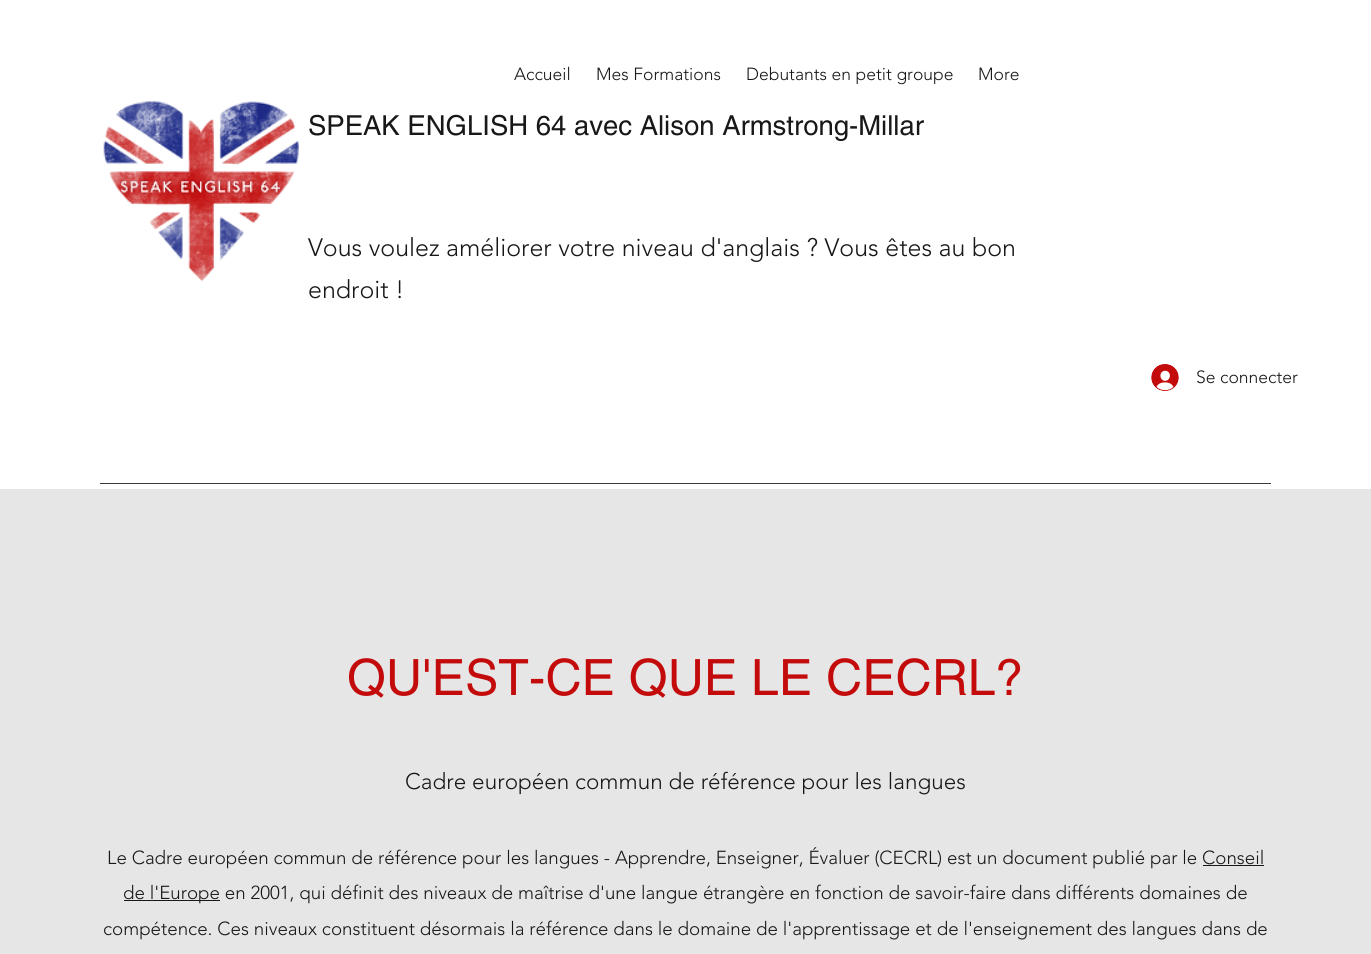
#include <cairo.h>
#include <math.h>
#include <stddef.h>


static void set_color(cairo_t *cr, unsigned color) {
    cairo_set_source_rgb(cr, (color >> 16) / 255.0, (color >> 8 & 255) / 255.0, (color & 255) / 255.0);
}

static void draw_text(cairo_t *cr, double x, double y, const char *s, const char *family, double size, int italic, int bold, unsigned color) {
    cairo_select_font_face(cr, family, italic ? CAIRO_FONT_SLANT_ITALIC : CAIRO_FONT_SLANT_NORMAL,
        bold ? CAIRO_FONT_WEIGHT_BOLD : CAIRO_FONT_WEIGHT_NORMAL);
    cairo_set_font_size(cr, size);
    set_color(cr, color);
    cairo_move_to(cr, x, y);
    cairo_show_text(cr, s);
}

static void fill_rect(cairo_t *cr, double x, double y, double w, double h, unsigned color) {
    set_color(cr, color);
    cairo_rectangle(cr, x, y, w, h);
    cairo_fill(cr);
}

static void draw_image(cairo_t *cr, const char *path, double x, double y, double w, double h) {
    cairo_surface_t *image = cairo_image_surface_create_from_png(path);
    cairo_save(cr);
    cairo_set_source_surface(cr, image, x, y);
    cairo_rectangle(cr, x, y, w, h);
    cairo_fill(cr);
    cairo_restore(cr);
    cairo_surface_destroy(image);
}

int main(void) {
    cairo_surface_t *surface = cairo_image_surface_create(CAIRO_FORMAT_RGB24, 1371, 954);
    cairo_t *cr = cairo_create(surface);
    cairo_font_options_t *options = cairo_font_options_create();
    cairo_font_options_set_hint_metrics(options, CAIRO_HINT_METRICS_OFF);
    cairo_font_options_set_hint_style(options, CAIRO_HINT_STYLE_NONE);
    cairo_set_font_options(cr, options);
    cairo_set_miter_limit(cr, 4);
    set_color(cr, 0xFFFFFF);
    cairo_paint(cr);
    draw_text(cr, 514, 80, "Accueil", "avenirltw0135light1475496 Light", 17.5, 0, 0, 0x181818);
    draw_text(cr, 596, 80, "Mes Formations", "avenirltw0135light1475496 Light", 17.5, 0, 0, 0x181818);
    draw_text(cr, 746, 80, "Debutants en petit groupe", "avenirltw0135light1475496 Light", 17.5, 0, 0, 0x181818);
    draw_text(cr, 978, 80, "More", "avenirltw0135light1475496 Light", 17.5, 0, 0, 0x181818);
    draw_image(cr, "assets/img1.png", 103, 101, 196, 181);
    draw_text(cr, 308, 135, "SPEAK ENGLISH 64 avec Alison Armstrong-Millar", "helvetica", 27.5, 0, 0, 0x181818);
    draw_text(cr, 308, 256, "Vous voulez améliorer votre niveau d'anglais ? Vous êtes au bon", "avenirltw0135light1475496 Light", 25, 0, 0, 0x181818);
    draw_text(cr, 308, 298, "endroit !", "avenirltw0135light1475496 Light", 25, 0, 0, 0x181818);
    draw_image(cr, "assets/img2.png", 1151, 364, 28, 27);
    draw_text(cr, 1196, 383, "Se connecter", "avenirltw0135light1475496 Light", 17.5, 0, 0, 0x181818);
    fill_rect(cr, 100, 483, 1171, 1, 0x3B3B3B);
    fill_rect(cr, 0, 489, 1371, 465, 0xE6E6E6);
    draw_text(cr, 347, 695, "QU'EST-CE QUE LE CECRL?", "helvetica", 50, 0, 0, 0xC40B0B);
    draw_text(cr, 405, 789, "Cadre européen commun de référence pour les langues", "avenirltw0135light1475496 Light", 22.5, 0, 0, 0x181818);
    draw_text(cr, 107, 864, "Le Cadre européen commun de référence pour les langues - Apprendre, Enseigner, Évaluer (CECRL) est un document publié par le Conseil", "avenirltw0135light1475496 Light", 18.75, 0, 0, 0x181818);
    fill_rect(cr, 1203, 865, 61, 1, 0x181818);
    fill_rect(cr, 124, 900, 96, 1, 0x181818);
    draw_text(cr, 123, 899, "de l'Europe en 2001, qui définit des niveaux de maîtrise d'une langue étrangère en fonction de savoir-faire dans différents domaines de", "avenirltw0135light1475496 Light", 18.75, 0, 0, 0x181818);
    draw_text(cr, 103, 935, "compétence. Ces niveaux constituent désormais la référence dans le domaine de l'apprentissage et de l'enseignement des langues dans de", "avenirltw0135light1475496 Light", 18.75, 0, 0, 0x181818);
    cairo_surface_write_to_png(surface, "output.png");
    cairo_font_options_destroy(options);
    cairo_destroy(cr);
    cairo_surface_destroy(surface);
    return 0;
}
